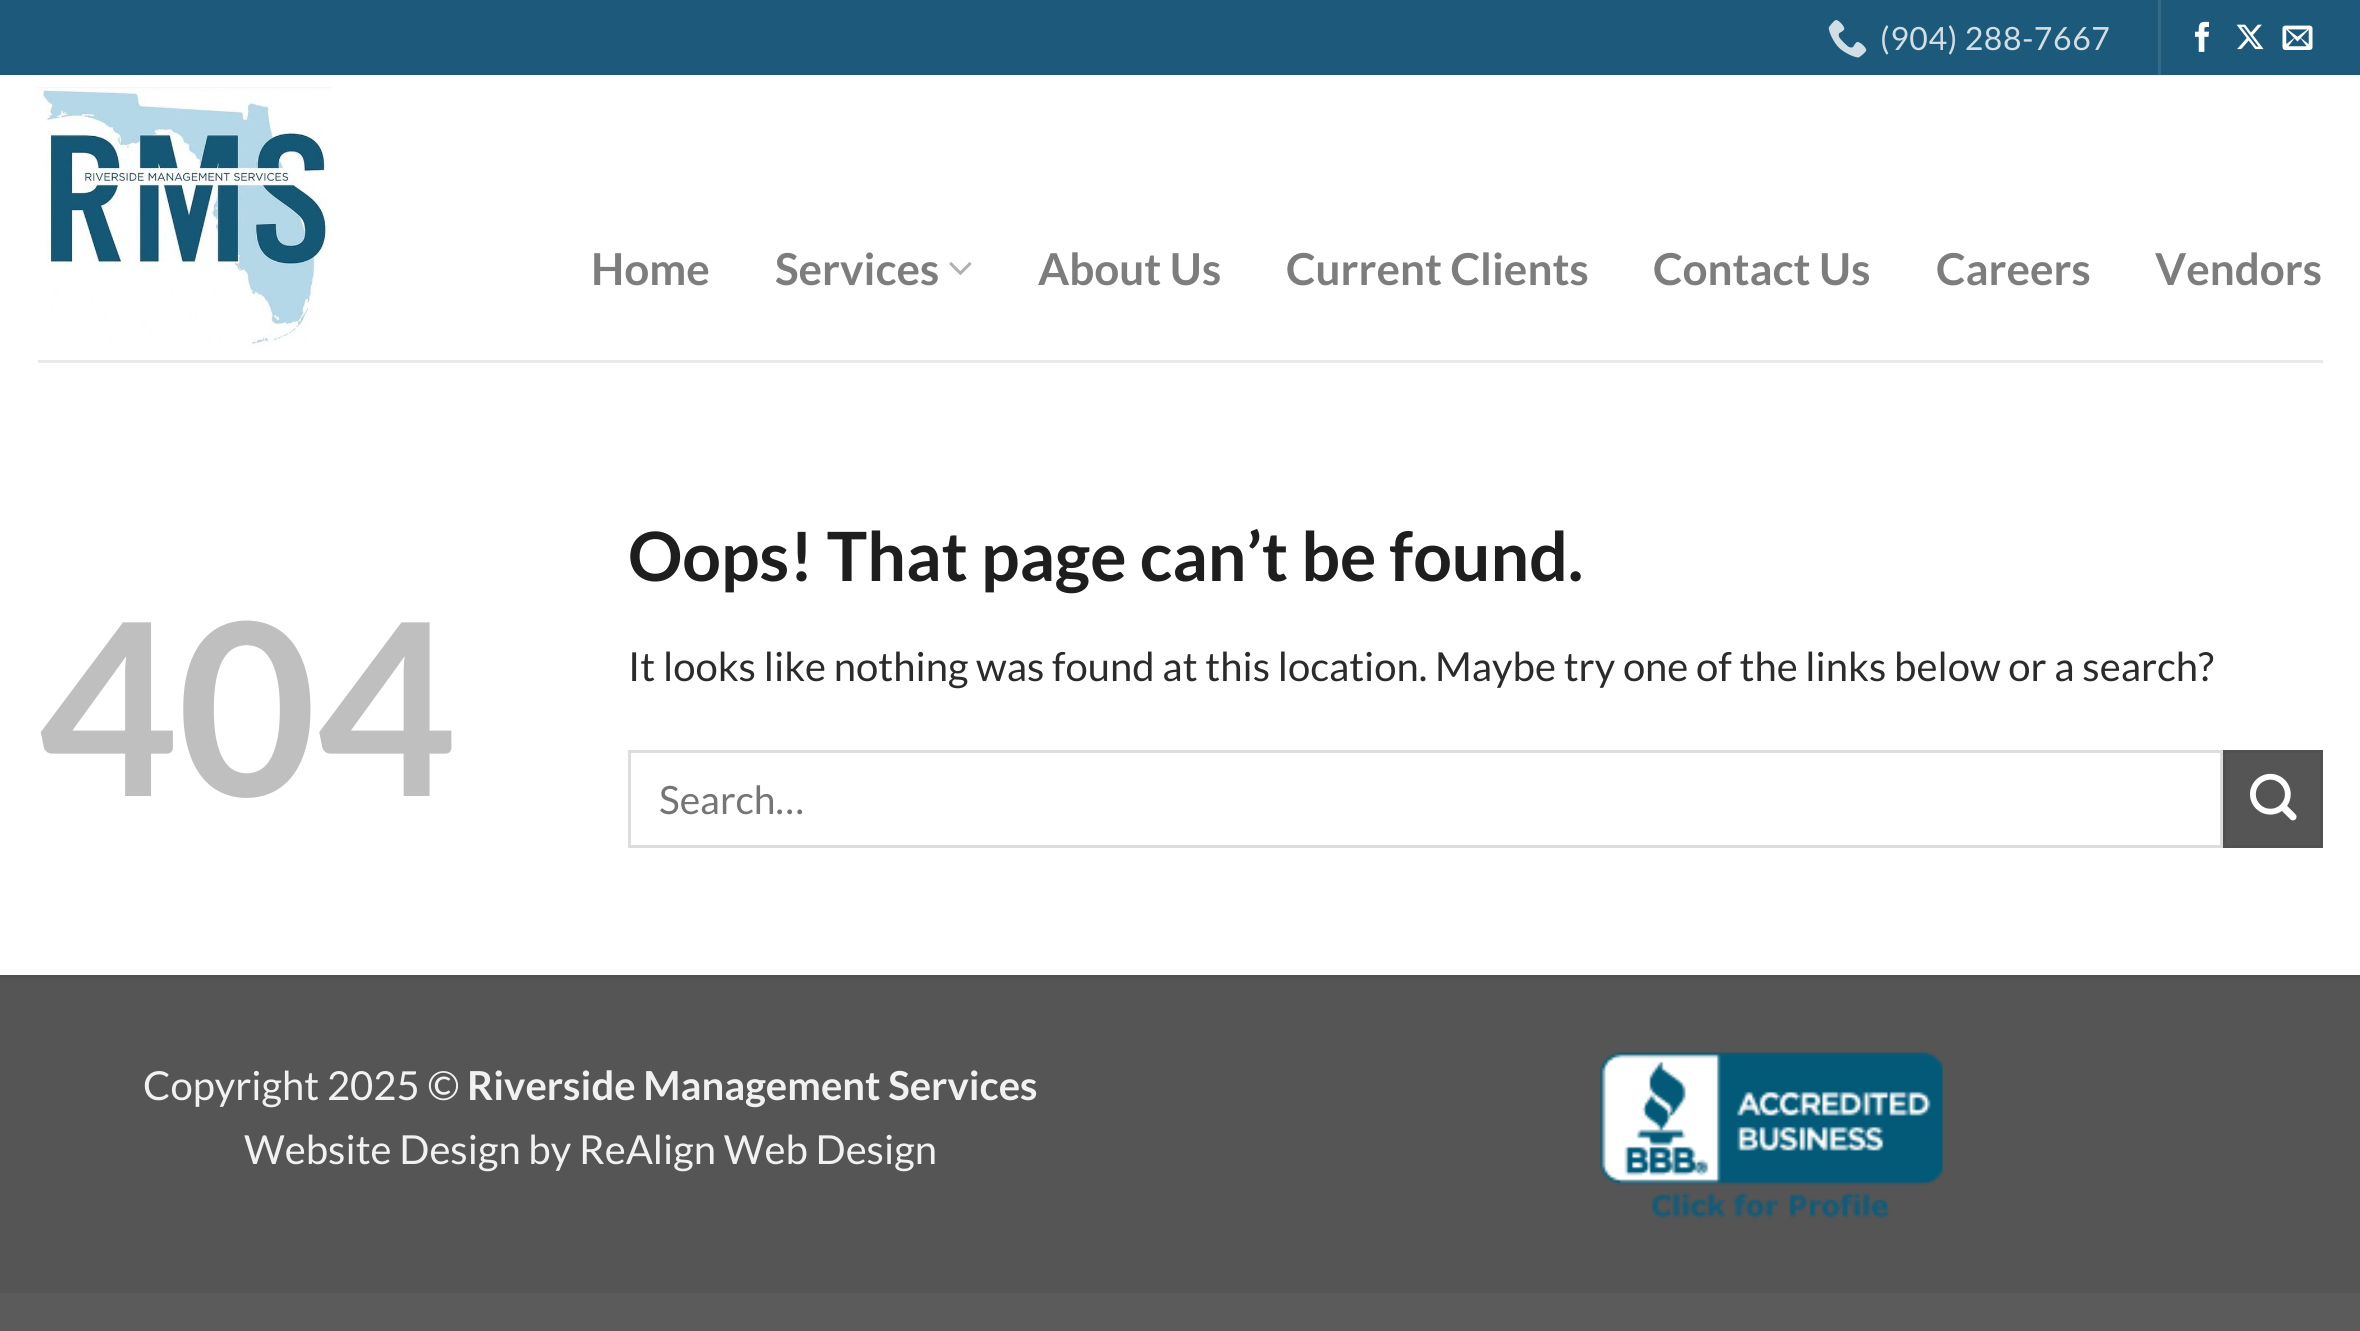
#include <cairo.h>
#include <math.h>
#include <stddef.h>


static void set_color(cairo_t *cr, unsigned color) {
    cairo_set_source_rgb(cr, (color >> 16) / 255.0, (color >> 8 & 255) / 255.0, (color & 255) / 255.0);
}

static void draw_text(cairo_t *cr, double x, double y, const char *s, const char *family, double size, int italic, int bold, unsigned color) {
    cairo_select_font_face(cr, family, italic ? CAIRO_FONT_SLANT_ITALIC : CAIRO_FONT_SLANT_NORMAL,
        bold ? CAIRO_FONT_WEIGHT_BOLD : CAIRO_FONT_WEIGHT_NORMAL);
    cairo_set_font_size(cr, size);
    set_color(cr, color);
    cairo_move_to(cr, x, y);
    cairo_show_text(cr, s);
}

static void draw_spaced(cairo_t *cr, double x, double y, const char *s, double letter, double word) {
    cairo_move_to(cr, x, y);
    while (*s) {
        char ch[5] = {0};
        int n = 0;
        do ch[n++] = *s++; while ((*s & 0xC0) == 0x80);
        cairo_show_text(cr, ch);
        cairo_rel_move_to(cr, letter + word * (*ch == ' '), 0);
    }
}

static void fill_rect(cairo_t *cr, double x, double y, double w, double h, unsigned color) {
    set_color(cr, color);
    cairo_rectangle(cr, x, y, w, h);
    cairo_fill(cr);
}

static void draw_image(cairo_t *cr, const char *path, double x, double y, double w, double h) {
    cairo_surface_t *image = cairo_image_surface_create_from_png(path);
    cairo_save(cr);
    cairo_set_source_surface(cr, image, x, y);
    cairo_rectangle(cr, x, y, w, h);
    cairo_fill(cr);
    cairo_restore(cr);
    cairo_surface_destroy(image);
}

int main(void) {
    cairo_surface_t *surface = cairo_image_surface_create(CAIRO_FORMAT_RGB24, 2360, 1331);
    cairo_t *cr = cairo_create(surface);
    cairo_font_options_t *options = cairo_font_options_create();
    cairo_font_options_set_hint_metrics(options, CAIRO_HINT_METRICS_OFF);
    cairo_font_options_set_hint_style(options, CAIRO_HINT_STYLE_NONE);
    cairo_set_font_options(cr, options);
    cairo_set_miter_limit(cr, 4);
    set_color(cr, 0xFFFFFF);
    cairo_paint(cr);
    fill_rect(cr, 0, 0, 2360, 75, 0x1C597B);
    draw_image(cr, "assets/img1.png", 1828, 20, 39, 38);
    cairo_select_font_face(cr, "Lato", CAIRO_FONT_SLANT_NORMAL, CAIRO_FONT_WEIGHT_NORMAL);
    cairo_set_font_size(cr, 32);
    set_color(cr, 0xD2DEE5);
    draw_spaced(cr, 1880, 50, "(904) 288-7667", 0.6, 0);
    fill_rect(cr, 2158, 0, 3, 75, 0x336A88);
    draw_image(cr, "assets/img2.png", 2195, 21, 14, 31);
    draw_image(cr, "assets/img3.png", 2236, 24, 28, 26);
    draw_image(cr, "assets/img4.png", 2282, 25, 31, 25);
    draw_image(cr, "assets/img5.png", 37, 87, 296, 260);
    draw_text(cr, 591, 285, "Home", "Lato", 44, 0, 1, 0x7D7D7D);
    draw_text(cr, 775, 285, "Services", "Lato", 44, 0, 1, 0x7D7D7D);
    draw_image(cr, "assets/img6.png", 949, 262, 23, 13);
    draw_text(cr, 1038, 285, "About Us", "Lato", 44, 0, 1, 0x7D7D7D);
    draw_text(cr, 1286, 285, "Current Clients", "Lato", 44, 0, 1, 0x7D7D7D);
    draw_text(cr, 1653, 285, "Contact Us", "Lato", 44, 0, 1, 0x7D7D7D);
    draw_text(cr, 1936, 285, "Careers", "Lato", 44, 0, 1, 0x7D7D7D);
    draw_text(cr, 2155, 285, "Vendors", "Lato", 44, 0, 1, 0x7D7D7D);
    fill_rect(cr, 38, 360, 2285, 3, 0xEAEAEA);
    draw_text(cr, 38, 796, "404", "Lato", 240, 0, 1, 0xBFBFBF);
    draw_text(cr, 628, 581, "Oops! That page can’t be found.", "Lato", 68, 0, 1, 0x1E1E1E);
    draw_text(cr, 628, 681, "It looks like nothing was found at this location. Maybe try one of the links below or a search?", "Lato", 40, 0, 0, 0x2B2B2B);
    cairo_rectangle(cr, 629.5, 751.5, 1592, 95);
    set_color(cr, 0xDDDDDD);
    cairo_set_line_width(cr, 3);
    cairo_stroke(cr);
    draw_text(cr, 659, 814, "Search…", "Lato", 39, 0, 0, 0x757575);
    set_color(cr, 0x555555);
    cairo_rectangle(cr, 2224.5, 751.5, 97, 95);
    cairo_fill_preserve(cr);
    set_color(cr, 0x515151);
    cairo_stroke(cr);
    draw_image(cr, "assets/img7.png", 2250, 773, 47, 48);
    fill_rect(cr, 0, 978, 2360, 315, 0x555555);
    fill_rect(cr, 0, 975, 2360, 3, 0x515151);
    draw_text(cr, 143, 1100, "Copyright 2025 ©", "Lato", 40, 0, 0, 0xF1F1F1);
    draw_text(cr, 467, 1100, "Riverside Management Services", "Lato", 40, 0, 1, 0xF1F1F1);
    draw_text(cr, 244, 1164, "Website Design by ReAlign Web Design", "Lato", 40, 0, 0, 0xF1F1F1);
    draw_image(cr, "assets/img8.png", 1600, 1052, 343, 167);
    fill_rect(cr, 0, 1293, 2360, 38, 0x5B5B5B);
    cairo_surface_write_to_png(surface, "output.png");
    cairo_font_options_destroy(options);
    cairo_destroy(cr);
    cairo_surface_destroy(surface);
    return 0;
}
